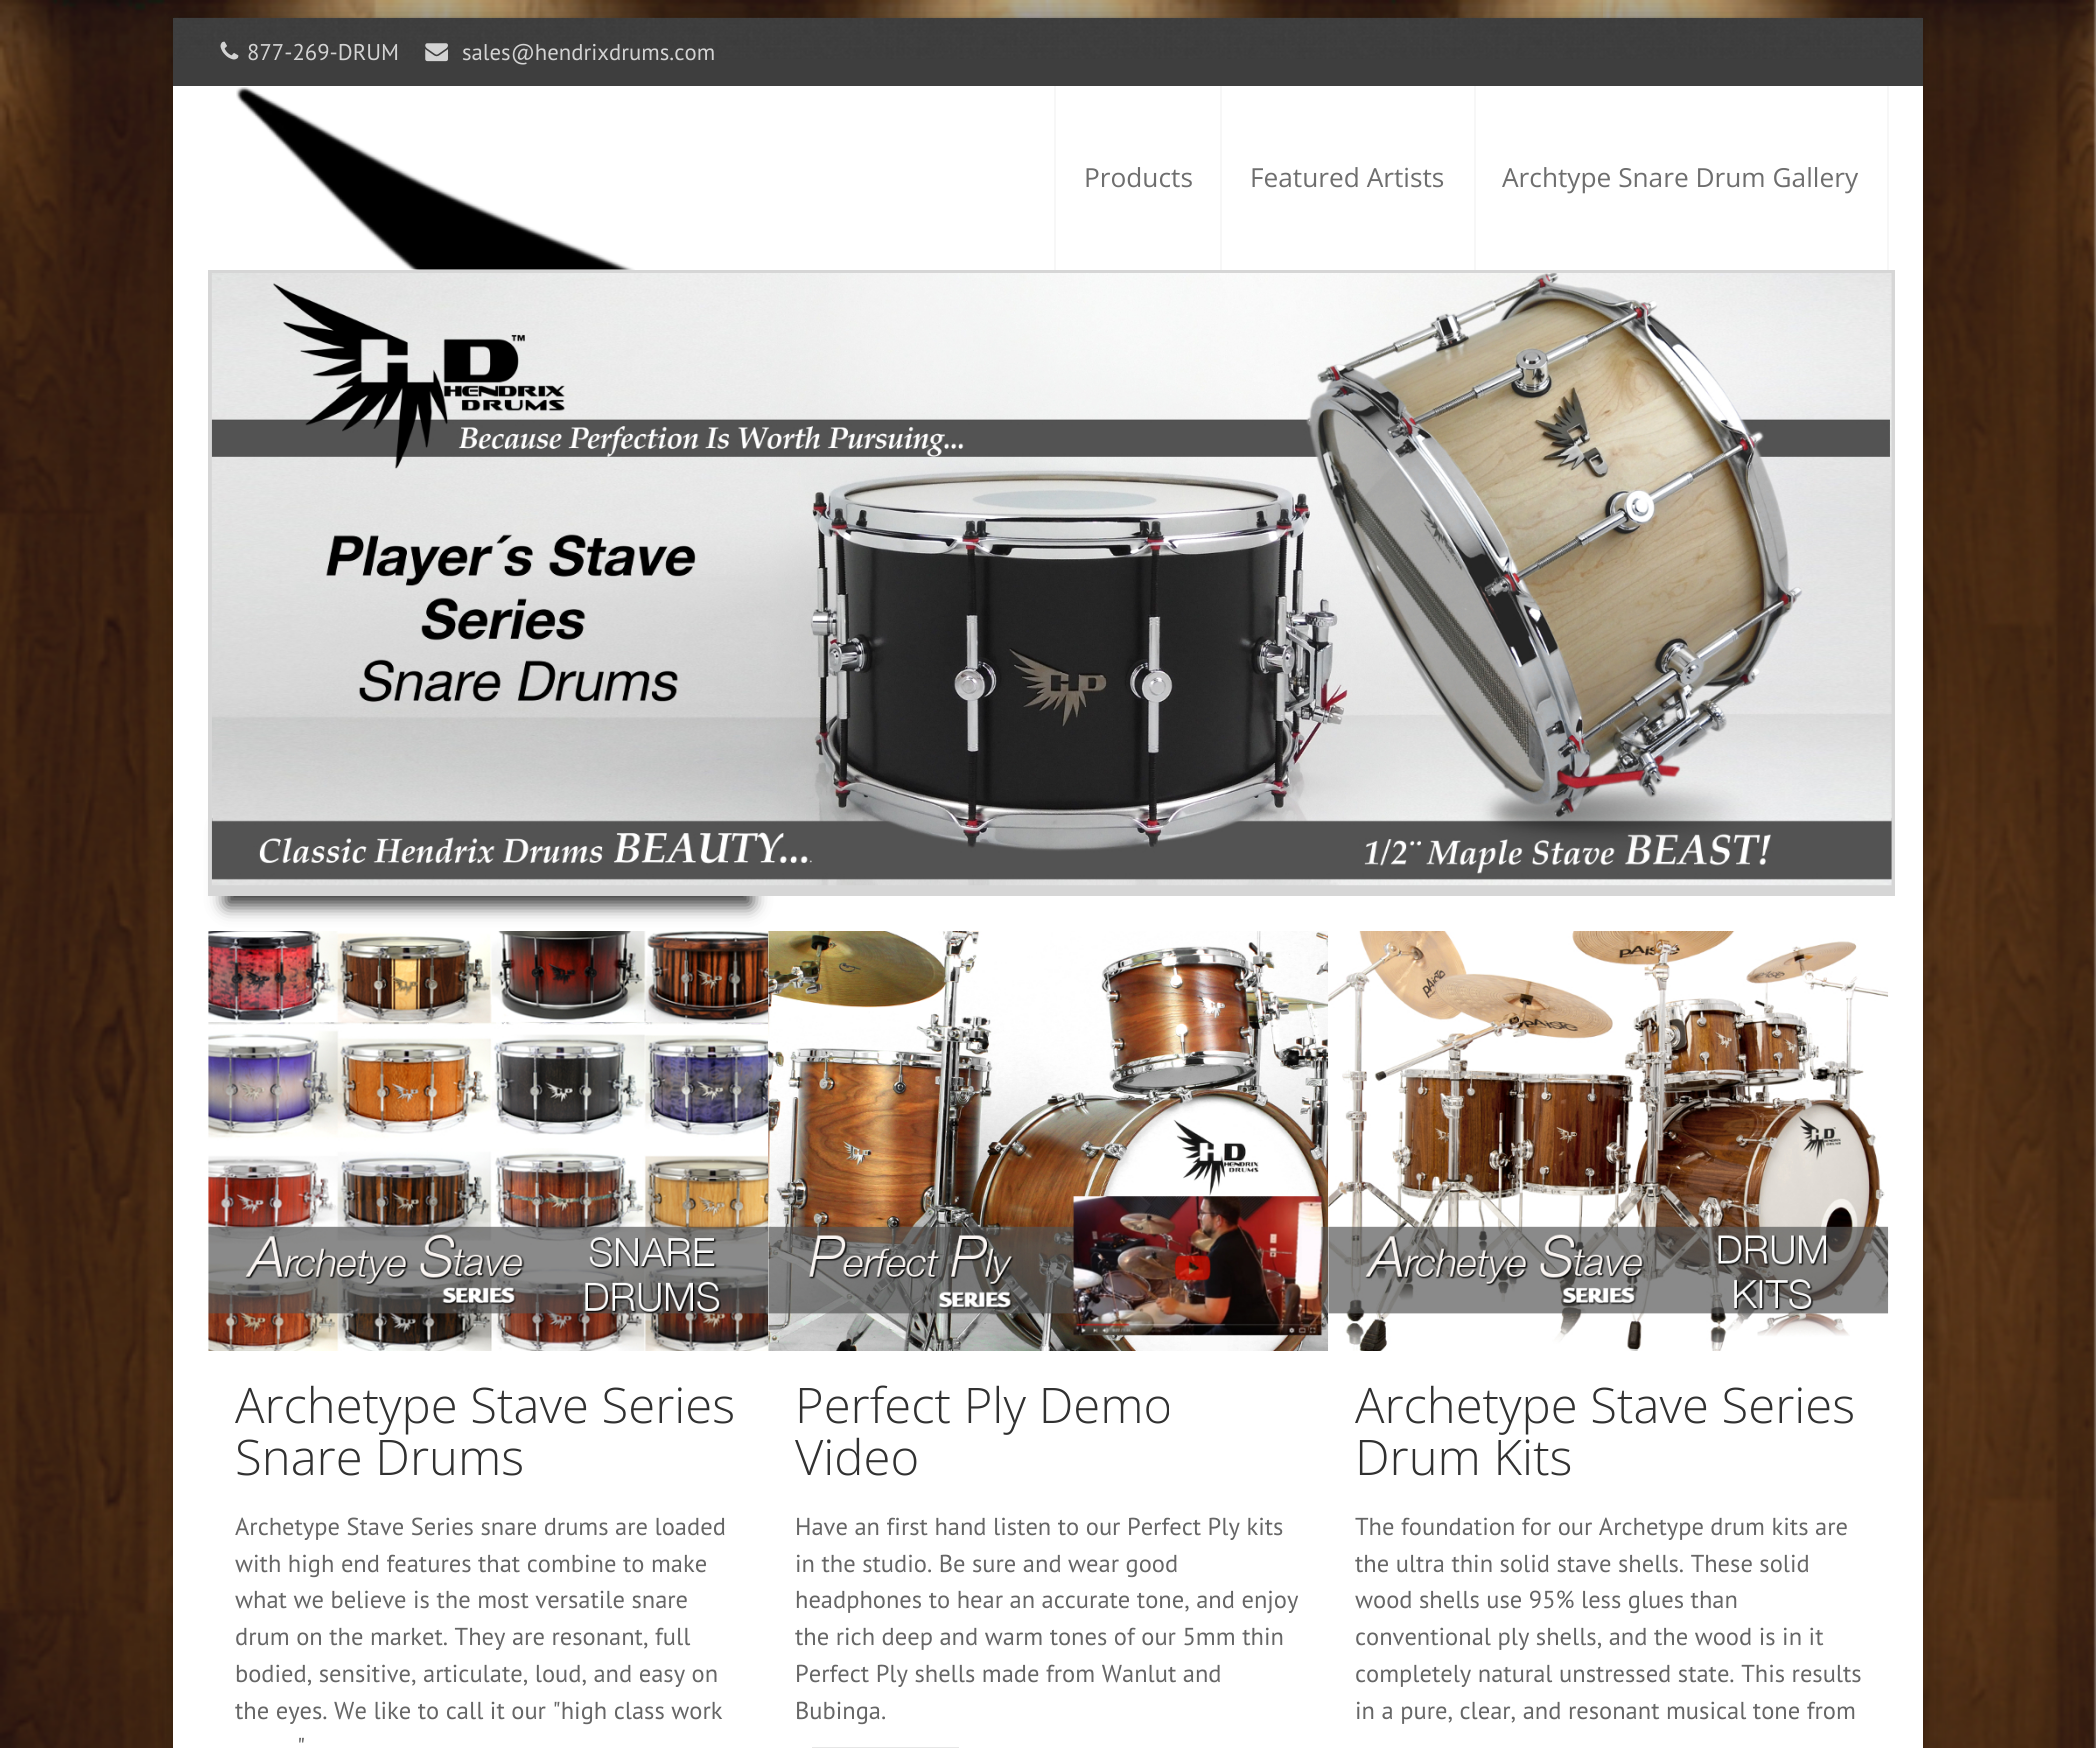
#include <cairo.h>
#include <math.h>
#include <stddef.h>


static void set_color(cairo_t *cr, unsigned color) {
    cairo_set_source_rgb(cr, (color >> 16) / 255.0, (color >> 8 & 255) / 255.0, (color & 255) / 255.0);
}

static void draw_text(cairo_t *cr, double x, double y, const char *s, const char *family, double size, int italic, int bold, unsigned color) {
    cairo_select_font_face(cr, family, italic ? CAIRO_FONT_SLANT_ITALIC : CAIRO_FONT_SLANT_NORMAL,
        bold ? CAIRO_FONT_WEIGHT_BOLD : CAIRO_FONT_WEIGHT_NORMAL);
    cairo_set_font_size(cr, size);
    set_color(cr, color);
    cairo_move_to(cr, x, y);
    cairo_show_text(cr, s);
}

static void fill_rect(cairo_t *cr, double x, double y, double w, double h, unsigned color) {
    set_color(cr, color);
    cairo_rectangle(cr, x, y, w, h);
    cairo_fill(cr);
}

static void rounded_rect(cairo_t *cr, double x, double y, double w, double h, double r) {
    cairo_new_sub_path(cr);
    cairo_arc(cr, x + w - r, y + h - r, r, 0, M_PI / 2);
    cairo_arc(cr, x + r, y + h - r, r, M_PI / 2, M_PI);
    cairo_arc(cr, x + r, y + r, r, M_PI, 1.5 * M_PI);
    cairo_arc(cr, x + w - r, y + r, r, 1.5 * M_PI, 2 * M_PI);
    cairo_close_path(cr);
}

static void draw_shadow(cairo_t *cr, double x, double y, double w, double h, double r, double blur, double alpha) {
    cairo_push_group_with_content(cr, CAIRO_CONTENT_ALPHA);
    cairo_set_operator(cr, CAIRO_OPERATOR_SOURCE);
    for (int i = 15; i >= -15 && fmin(w, h) + blur * i / 3 > 0; i -= 2) {
        double e = blur * i / 6;
        cairo_set_source_rgba(cr, 0, 0, 0, alpha * erfc((i - 1) / 8.5) / 2);
        rounded_rect(cr, x - e, y - e, w + 2 * e, h + 2 * e, fmax(0, fmin(r + e + blur * .6, fmin(w, h) / 2 + e)));
        cairo_fill(cr);
    }
    cairo_pattern_t *soft = cairo_pop_group(cr);
    cairo_mask(cr, soft);
    cairo_pattern_destroy(soft);
}

static void draw_image(cairo_t *cr, const char *path, double x, double y, double w, double h) {
    cairo_surface_t *image = cairo_image_surface_create_from_png(path);
    cairo_save(cr);
    cairo_set_source_surface(cr, image, x, y);
    cairo_rectangle(cr, x, y, w, h);
    cairo_fill(cr);
    cairo_restore(cr);
    cairo_surface_destroy(image);
}

int main(void) {
    cairo_surface_t *surface = cairo_image_surface_create(CAIRO_FORMAT_RGB24, 2096, 1748);
    cairo_t *cr = cairo_create(surface);
    cairo_font_options_t *options = cairo_font_options_create();
    cairo_font_options_set_hint_metrics(options, CAIRO_HINT_METRICS_OFF);
    cairo_font_options_set_hint_style(options, CAIRO_HINT_STYLE_NONE);
    cairo_set_font_options(cr, options);
    cairo_set_miter_limit(cr, 4);
    set_color(cr, 0xF8F8F8);
    cairo_paint(cr);
    draw_image(cr, "assets/img1.png", 0, 0, 2096, 1748);
    set_color(cr, 0x000000);
    draw_shadow(cr, 173, 18, 1750, 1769, 0, 13, 0.3);
    fill_rect(cr, 173, 86, 1750, 1662, 0xFFFFFF);
    fill_rect(cr, 173, 18, 1750, 68, 0x3E3E3E);
    draw_image(cr, "assets/img2.png", 174, 17, 1748, 42);
    draw_image(cr, "assets/img3.png", 220, 41, 19, 19);
    draw_text(cr, 247, 60, "877-269-DRUM", "PT Sans", 22.75, 0, 0, 0xD3D3D3);
    draw_image(cr, "assets/img4.png", 425, 43, 23, 19);
    draw_text(cr, 462, 60, "sales@hendrixdrums.com", "PT Sans", 22.75, 0, 0, 0xD3D3D3);
    draw_image(cr, "assets/img5.png", 236, 87, 399, 183);
    fill_rect(cr, 1887, 86, 2, 184, 0xF7F7F7);
    fill_rect(cr, 1054, 86, 2, 184, 0xF7F7F7);
    draw_text(cr, 1084, 187, "Products", "Open Sans", 26.25, 0, 0, 0x6E6E6E);
    fill_rect(cr, 1220, 86, 2, 184, 0xF7F7F7);
    draw_text(cr, 1250, 187, "Featured Artists", "Open Sans", 26.25, 0, 0, 0x6E6E6E);
    fill_rect(cr, 1474, 86, 2, 184, 0xF7F7F7);
    draw_text(cr, 1502, 187, "Archtype Snare Drum Gallery", "Open Sans", 26.25, 0, 0, 0x6E6E6E);
    set_color(cr, 0x000000);
    draw_shadow(cr, 226, 828, 525, 77, 0, 9, 0.8);
    fill_rect(cr, 208, 270, 1687, 626, 0xD6D6D6);
    draw_image(cr, "assets/img6.png", 211, 273, 1681, 613);
    draw_image(cr, "assets/img7.png", 208, 931, 561, 420);
    draw_text(cr, 235, 1423, "Archetype Stave Series", "Open Sans Light", 49, 0, 0, 0x313131);
    draw_text(cr, 235, 1475, "Snare Drums", "Open Sans Light", 49, 0, 0, 0x313131);
    draw_text(cr, 235, 1535, "Archetype Stave Series snare drums are loaded", "PT Sans", 24.5, 0, 0, 0x666666);
    draw_text(cr, 235, 1572, "with high end features that combine to make", "PT Sans", 24.5, 0, 0, 0x666666);
    draw_text(cr, 235, 1608, "what we believe is the most versatile snare", "PT Sans", 24.5, 0, 0, 0x666666);
    draw_text(cr, 235, 1645, "drum on the market. They are resonant, full", "PT Sans", 24.5, 0, 0, 0x666666);
    draw_text(cr, 235, 1682, "bodied, sensitive, articulate, loud, and easy on", "PT Sans", 24.5, 0, 0, 0x666666);
    draw_text(cr, 235, 1719, "the eyes. We like to call it our \"high class work", "PT Sans", 24.5, 0, 0, 0x666666);
    draw_text(cr, 297, 1755, "\"", "PT Sans", 24.5, 0, 0, 0x666666);
    draw_image(cr, "assets/img8.png", 768, 931, 561, 420);
    draw_text(cr, 795, 1423, "Perfect Ply Demo", "Open Sans Light", 49, 0, 0, 0x313131);
    draw_text(cr, 795, 1475, "Video", "Open Sans Light", 49, 0, 0, 0x313131);
    draw_text(cr, 795, 1535, "Have an first hand listen to our Perfect Ply kits", "PT Sans", 24.5, 0, 0, 0x666666);
    draw_text(cr, 795, 1572, "in the studio. Be sure and wear good", "PT Sans", 24.5, 0, 0, 0x666666);
    draw_text(cr, 795, 1608, "headphones to hear an accurate tone, and enjoy", "PT Sans", 24.5, 0, 0, 0x666666);
    draw_text(cr, 795, 1645, "the rich deep and warm tones of our 5mm thin", "PT Sans", 24.5, 0, 0, 0x666666);
    draw_text(cr, 795, 1682, "Perfect Ply shells made from Wanlut and", "PT Sans", 24.5, 0, 0, 0x666666);
    draw_text(cr, 795, 1719, "Bubinga.", "PT Sans", 24.5, 0, 0, 0x666666);
    cairo_rectangle(cr, 813, 1748, 145, 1);
    set_color(cr, 0xE6E6E6);
    cairo_stroke(cr);
    draw_image(cr, "assets/img9.png", 1328, 931, 561, 420);
    draw_text(cr, 1355, 1423, "Archetype Stave Series", "Open Sans Light", 49, 0, 0, 0x313131);
    draw_text(cr, 1355, 1475, "Drum Kits", "Open Sans Light", 49, 0, 0, 0x313131);
    draw_text(cr, 1355, 1535, "The foundation for our Archetype drum kits are", "PT Sans", 24.5, 0, 0, 0x666666);
    draw_text(cr, 1355, 1572, "the ultra thin solid stave shells. These solid", "PT Sans", 24.5, 0, 0, 0x666666);
    draw_text(cr, 1355, 1608, "wood shells use 95% less glues than", "PT Sans", 24.5, 0, 0, 0x666666);
    draw_text(cr, 1355, 1645, "conventional ply shells, and the wood is in it", "PT Sans", 24.5, 0, 0, 0x666666);
    draw_text(cr, 1355, 1682, "completely natural unstressed state. This results", "PT Sans", 24.5, 0, 0, 0x666666);
    draw_text(cr, 1355, 1719, "in a pure, clear, and resonant musical tone from", "PT Sans", 24.5, 0, 0, 0x666666);
    cairo_surface_write_to_png(surface, "output.png");
    cairo_font_options_destroy(options);
    cairo_destroy(cr);
    cairo_surface_destroy(surface);
    return 0;
}
